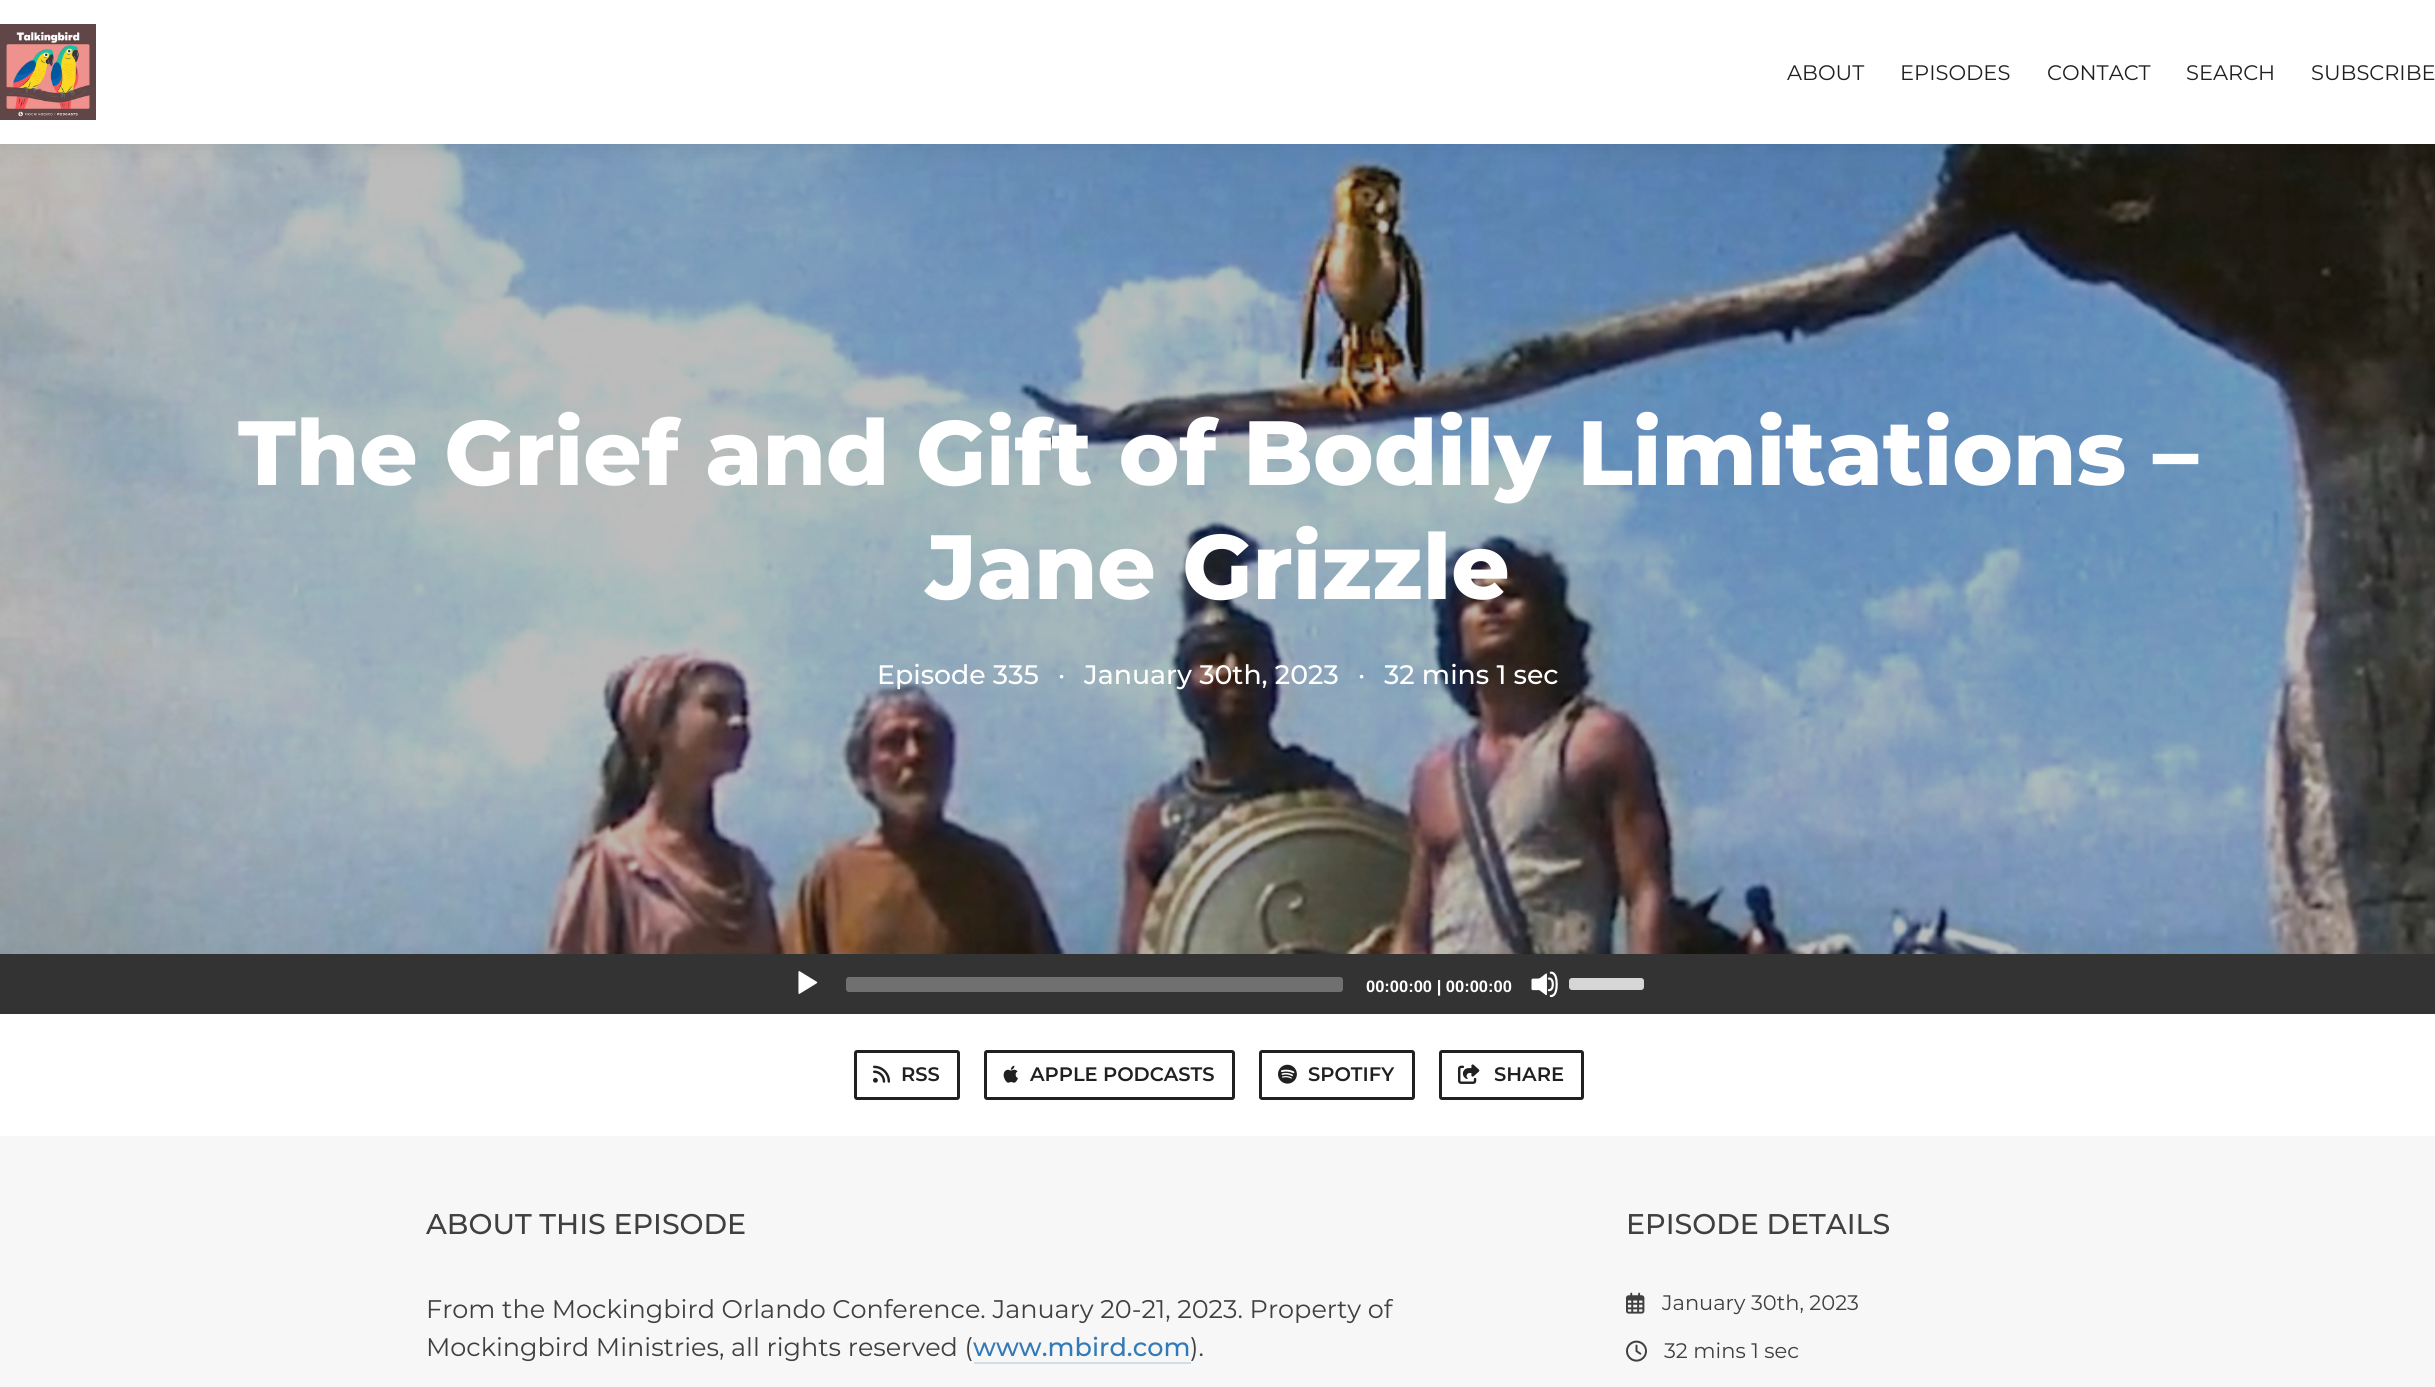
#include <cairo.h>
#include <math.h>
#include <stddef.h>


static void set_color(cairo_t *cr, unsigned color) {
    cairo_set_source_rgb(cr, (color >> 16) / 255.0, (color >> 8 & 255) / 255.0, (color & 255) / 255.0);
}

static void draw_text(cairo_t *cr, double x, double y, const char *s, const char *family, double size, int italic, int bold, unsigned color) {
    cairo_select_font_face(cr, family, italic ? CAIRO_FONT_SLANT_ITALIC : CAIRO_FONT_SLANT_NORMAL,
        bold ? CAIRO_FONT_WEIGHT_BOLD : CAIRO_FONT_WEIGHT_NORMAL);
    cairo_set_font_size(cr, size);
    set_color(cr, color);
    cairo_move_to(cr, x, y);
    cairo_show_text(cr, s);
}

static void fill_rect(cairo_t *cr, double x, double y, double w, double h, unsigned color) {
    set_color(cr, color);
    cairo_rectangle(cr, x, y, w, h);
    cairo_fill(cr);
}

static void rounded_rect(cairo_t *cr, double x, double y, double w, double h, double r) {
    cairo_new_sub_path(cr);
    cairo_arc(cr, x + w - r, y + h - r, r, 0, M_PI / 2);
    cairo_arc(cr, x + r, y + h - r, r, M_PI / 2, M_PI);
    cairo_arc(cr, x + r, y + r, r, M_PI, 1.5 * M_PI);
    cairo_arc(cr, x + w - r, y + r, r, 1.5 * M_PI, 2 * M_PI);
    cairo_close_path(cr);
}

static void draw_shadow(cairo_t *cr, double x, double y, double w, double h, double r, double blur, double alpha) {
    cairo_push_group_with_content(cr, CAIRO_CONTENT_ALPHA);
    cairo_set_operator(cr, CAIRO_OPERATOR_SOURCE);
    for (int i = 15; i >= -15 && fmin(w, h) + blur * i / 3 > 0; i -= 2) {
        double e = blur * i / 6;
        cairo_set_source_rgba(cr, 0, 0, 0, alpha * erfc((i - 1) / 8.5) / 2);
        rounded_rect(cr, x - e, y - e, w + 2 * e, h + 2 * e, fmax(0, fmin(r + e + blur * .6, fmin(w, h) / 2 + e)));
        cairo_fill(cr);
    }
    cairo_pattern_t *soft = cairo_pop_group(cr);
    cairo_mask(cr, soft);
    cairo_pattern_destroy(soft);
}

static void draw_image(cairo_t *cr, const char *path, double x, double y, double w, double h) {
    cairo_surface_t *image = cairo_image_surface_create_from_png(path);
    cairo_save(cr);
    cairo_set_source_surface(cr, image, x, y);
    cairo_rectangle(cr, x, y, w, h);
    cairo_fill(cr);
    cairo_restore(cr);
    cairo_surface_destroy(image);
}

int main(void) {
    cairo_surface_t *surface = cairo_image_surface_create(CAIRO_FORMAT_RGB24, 2435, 1387);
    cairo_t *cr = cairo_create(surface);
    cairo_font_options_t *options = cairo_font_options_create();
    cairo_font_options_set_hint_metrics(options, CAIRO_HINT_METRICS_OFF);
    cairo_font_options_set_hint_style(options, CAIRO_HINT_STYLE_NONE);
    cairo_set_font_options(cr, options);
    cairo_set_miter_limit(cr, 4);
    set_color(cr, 0xF7F7F7);
    cairo_paint(cr);
    draw_image(cr, "assets/img2.png", 0, 144, 2435, 810);
    set_color(cr, 0x000000);
    draw_shadow(cr, 0, 0, 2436, 144, 0, 12, 0.1);
    fill_rect(cr, 0, 0, 2435, 144, 0xFFFFFF);
    draw_image(cr, "assets/img1.png", 0, 24, 96, 96);
    draw_text(cr, 1787, 80, "ABOUT", "Montserrat", 21, 0, 0, 0x202020);
    draw_text(cr, 1900, 80, "EPISODES", "Montserrat", 21, 0, 0, 0x202020);
    draw_text(cr, 2047, 80, "CONTACT", "Montserrat", 21, 0, 0, 0x202020);
    draw_text(cr, 2186, 80, "SEARCH", "Montserrat", 21, 0, 0, 0x202020);
    draw_text(cr, 2311, 80, "SUBSCRIBE", "Montserrat", 21, 0, 0, 0x202020);
    draw_text(cr, 238, 485, "The Grief and Gift of Bodily Limitations –", "Montserrat ExtraBold", 91.1, 0, 0, 0xFFFFFF);
    draw_text(cr, 926, 599, "Jane Grizzle", "Montserrat ExtraBold", 91.1, 0, 0, 0xFFFFFF);
    draw_text(cr, 877, 684, "Episode 335", "Montserrat Medium", 26.75, 0, 0, 0xFFFFFF);
    draw_text(cr, 1058, 684, "·", "Montserrat Medium", 26.75, 0, 0, 0xFFFFFF);
    draw_text(cr, 1084, 684, "January 30th, 2023", "Montserrat Medium", 26.75, 0, 0, 0xFFFFFF);
    draw_text(cr, 1358, 684, "·", "Montserrat Medium", 26.75, 0, 0, 0xFFFFFF);
    draw_text(cr, 1384, 684, "32 mins 1 sec", "Montserrat Medium", 26.75, 0, 0, 0xFFFFFF);
    fill_rect(cr, 0, 954, 2435, 60, 0x333333);
    draw_image(cr, "assets/img3.png", 798, 971, 20, 23);
    set_color(cr, 0x707070);
    rounded_rect(cr, 846, 977, 497, 15, 3);
    cairo_fill(cr);
    draw_text(cr, 1366, 992, "00:00:00 | 00:00:00", "Liberation Sans", 16.5, 0, 1, 0xFFFFFF);
    draw_image(cr, "assets/img4.png", 1531, 971, 27, 27);
    set_color(cr, 0xD6D6D6);
    rounded_rect(cr, 1569, 978, 75, 12, 3);
    cairo_fill(cr);
    fill_rect(cr, 0, 1014, 2435, 122, 0xFFFFFF);
    rounded_rect(cr, 855.5, 1051.5, 103, 47, 1.5);
    set_color(cr, 0x202020);
    cairo_set_line_width(cr, 3);
    cairo_stroke(cr);
    draw_image(cr, "assets/img5.png", 873, 1065, 18, 18);
    draw_text(cr, 901, 1081, "RSS", "Montserrat SemiBold", 19.5, 0, 0, 0x202020);
    rounded_rect(cr, 985.5, 1051.5, 248, 47, 1.5);
    cairo_stroke(cr);
    draw_image(cr, "assets/img6.png", 1003, 1065, 15, 18);
    draw_text(cr, 1030, 1081, "APPLE PODCASTS", "Montserrat SemiBold", 19.5, 0, 0, 0x202020);
    rounded_rect(cr, 1260.5, 1051.5, 153, 47, 1.5);
    cairo_stroke(cr);
    draw_image(cr, "assets/img7.png", 1278, 1064, 19, 20);
    draw_text(cr, 1308, 1081, "SPOTIFY", "Montserrat SemiBold", 19.5, 0, 0, 0x202020);
    rounded_rect(cr, 1440.5, 1051.5, 142, 47, 1.5);
    cairo_stroke(cr);
    draw_image(cr, "assets/img8.png", 1458, 1064, 22, 20);
    draw_text(cr, 1494, 1081, "SHARE", "Montserrat SemiBold", 19.5, 0, 0, 0x202020);
    draw_text(cr, 426, 1234, "ABOUT THIS EPISODE", "Montserrat Medium", 28.5, 0, 0, 0x404040);
    draw_text(cr, 426, 1318, "From the Mockingbird Orlando Conference. January 20-21, 2023. Property of", "Montserrat", 25.5, 0, 0, 0x404040);
    draw_text(cr, 426, 1356, "Mockingbird Ministries, all rights reserved (", "Montserrat", 25.5, 0, 0, 0x404040);
    draw_text(cr, 973, 1356, "www.mbird.com", "Montserrat Medium", 25.5, 0, 0, 0x337AB7);
    fill_rect(cr, 974, 1362, 217, 2, 0xD0DEEA);
    draw_text(cr, 1190, 1356, ").", "Montserrat", 25.5, 0, 0, 0x404040);
    draw_text(cr, 1626, 1234, "EPISODE DETAILS", "Montserrat Medium", 28.5, 0, 0, 0x404040);
    draw_image(cr, "assets/img9.png", 1626, 1292, 19, 22);
    draw_text(cr, 1662, 1310, "January 30th, 2023", "Montserrat", 21, 0, 0, 0x404040);
    draw_image(cr, "assets/img10.png", 1626, 1340, 21, 22);
    draw_text(cr, 1664, 1358, "32 mins 1 sec", "Montserrat", 21, 0, 0, 0x404040);
    cairo_surface_write_to_png(surface, "output.png");
    cairo_font_options_destroy(options);
    cairo_destroy(cr);
    cairo_surface_destroy(surface);
    return 0;
}
